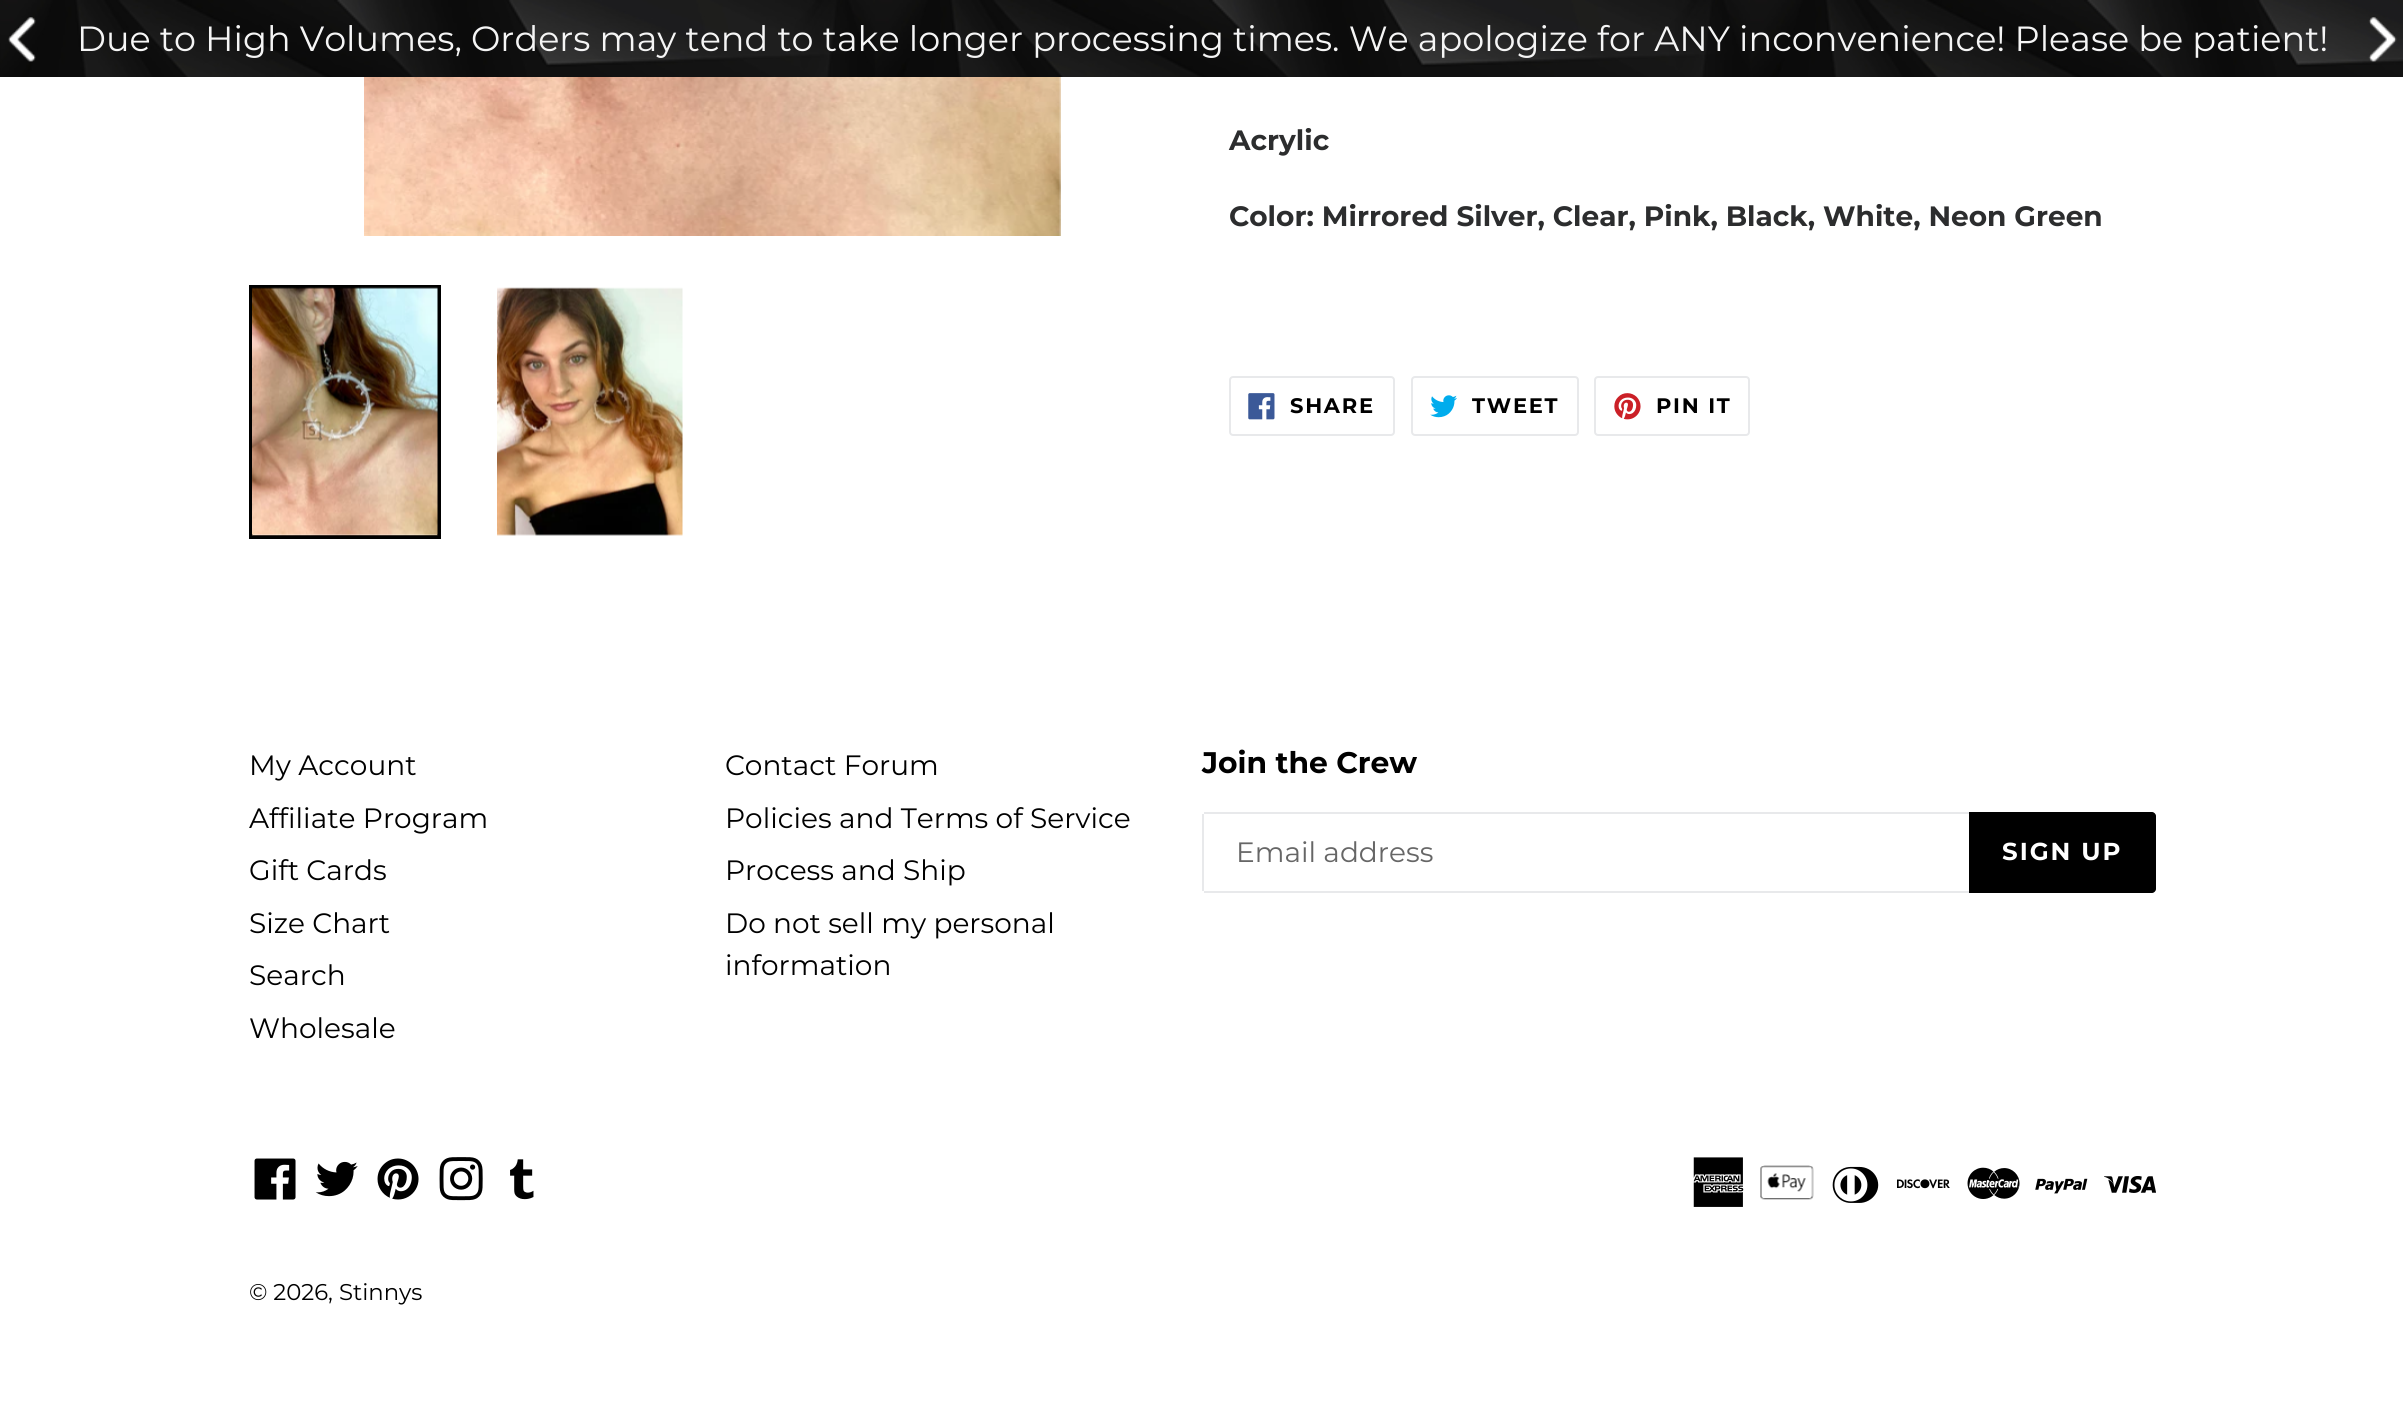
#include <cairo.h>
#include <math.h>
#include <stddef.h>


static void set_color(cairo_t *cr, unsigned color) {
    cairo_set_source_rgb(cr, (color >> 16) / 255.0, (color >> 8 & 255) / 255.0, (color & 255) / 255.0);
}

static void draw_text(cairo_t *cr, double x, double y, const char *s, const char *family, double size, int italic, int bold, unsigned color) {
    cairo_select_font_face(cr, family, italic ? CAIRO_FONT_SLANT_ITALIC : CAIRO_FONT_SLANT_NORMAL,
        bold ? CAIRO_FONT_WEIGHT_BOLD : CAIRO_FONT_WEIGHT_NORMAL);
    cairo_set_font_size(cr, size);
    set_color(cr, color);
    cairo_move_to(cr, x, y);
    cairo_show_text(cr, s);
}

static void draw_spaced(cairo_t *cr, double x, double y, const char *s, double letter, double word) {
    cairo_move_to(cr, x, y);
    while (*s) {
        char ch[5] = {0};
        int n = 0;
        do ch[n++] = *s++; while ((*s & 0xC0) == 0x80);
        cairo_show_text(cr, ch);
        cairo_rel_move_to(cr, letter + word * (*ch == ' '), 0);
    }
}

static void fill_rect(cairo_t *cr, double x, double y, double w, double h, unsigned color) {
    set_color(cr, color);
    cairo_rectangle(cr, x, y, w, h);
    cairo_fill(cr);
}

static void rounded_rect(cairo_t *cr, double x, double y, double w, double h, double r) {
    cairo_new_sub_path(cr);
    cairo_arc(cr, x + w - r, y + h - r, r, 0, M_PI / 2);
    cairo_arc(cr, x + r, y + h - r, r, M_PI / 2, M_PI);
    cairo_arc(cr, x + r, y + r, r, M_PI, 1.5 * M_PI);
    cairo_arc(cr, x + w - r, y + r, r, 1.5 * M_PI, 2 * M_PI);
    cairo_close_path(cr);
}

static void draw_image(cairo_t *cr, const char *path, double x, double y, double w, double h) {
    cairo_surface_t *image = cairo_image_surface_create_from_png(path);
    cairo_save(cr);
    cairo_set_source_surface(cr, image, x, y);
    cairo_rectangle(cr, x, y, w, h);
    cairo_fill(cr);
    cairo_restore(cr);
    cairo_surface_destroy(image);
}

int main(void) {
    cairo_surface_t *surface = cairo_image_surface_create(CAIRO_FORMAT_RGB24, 2403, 1408);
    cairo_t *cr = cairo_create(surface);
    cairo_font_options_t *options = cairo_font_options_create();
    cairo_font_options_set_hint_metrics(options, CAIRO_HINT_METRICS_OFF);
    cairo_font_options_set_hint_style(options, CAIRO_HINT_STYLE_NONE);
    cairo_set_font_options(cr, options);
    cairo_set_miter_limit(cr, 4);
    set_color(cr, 0xFFFFFF);
    cairo_paint(cr);
    draw_image(cr, "assets/img1.png", 0, 0, 2403, 77);
    draw_image(cr, "assets/img2.png", 8, 17, 28, 45);
    draw_text(cr, 77, 51, "Due to High Volumes, Orders may tend to take longer processing times. We apologize for ANY inconvenience! Please be patient!", "Montserrat", 35, 0, 0, 0xF5F5F5);
    draw_image(cr, "assets/img3.png", 2368, 17, 29, 45);
    draw_image(cr, "assets/img4.png", 364, 77, 697, 159);
    cairo_rectangle(cr, 251, 287, 188, 250);
    set_color(cr, 0x000000);
    cairo_set_line_width(cr, 4);
    cairo_stroke(cr);
    draw_image(cr, "assets/img5.png", 252, 287, 186, 249);
    draw_image(cr, "assets/img6.png", 497, 287, 186, 249);
    draw_text(cr, 1229, 150, "Acrylic", "Montserrat", 28, 0, 1, 0x2C2D2E);
    draw_text(cr, 1229, 226, "Color: Mirrored Silver, Clear, Pink, Black, White, Neon Green", "Montserrat", 28, 0, 1, 0x2C2D2E);
    rounded_rect(cr, 1230, 377, 164, 58, 3);
    set_color(cr, 0xE8E9EB);
    cairo_set_line_width(cr, 2);
    cairo_stroke(cr);
    draw_image(cr, "assets/img7.png", 1248, 393, 27, 27);
    cairo_set_font_size(cr, 21);
    set_color(cr, 0x000000);
    draw_spaced(cr, 1290, 413, "SHARE", 1.75, 0);
    rounded_rect(cr, 1412, 377, 166, 58, 3);
    set_color(cr, 0xE8E9EB);
    cairo_stroke(cr);
    draw_image(cr, "assets/img8.png", 1430, 395, 27, 23);
    set_color(cr, 0x000000);
    draw_spaced(cr, 1472, 413, "TWEET", 1.75, 0);
    rounded_rect(cr, 1595, 377, 154, 58, 3);
    set_color(cr, 0xE8E9EB);
    cairo_stroke(cr);
    draw_image(cr, "assets/img9.png", 1614, 393, 27, 27);
    set_color(cr, 0x000000);
    draw_spaced(cr, 1656, 413, "PIN IT", 1.75, 0);
    draw_text(cr, 249, 775, "My Account", "Montserrat", 28, 0, 0, 0x000000);
    draw_text(cr, 249, 828, "Affiliate Program", "Montserrat", 28, 0, 0, 0x000000);
    draw_text(cr, 249, 880, "Gift Cards", "Montserrat", 28, 0, 0, 0x000000);
    draw_text(cr, 249, 933, "Size Chart", "Montserrat", 28, 0, 0, 0x000000);
    draw_text(cr, 249, 985, "Search", "Montserrat", 28, 0, 0, 0x000000);
    draw_text(cr, 249, 1038, "Wholesale", "Montserrat", 28, 0, 0, 0x000000);
    draw_text(cr, 725, 775, "Contact Forum", "Montserrat", 28, 0, 0, 0x000000);
    draw_text(cr, 725, 828, "Policies and Terms of Service", "Montserrat", 28, 0, 0, 0x000000);
    draw_text(cr, 725, 880, "Process and Ship", "Montserrat", 28, 0, 0, 0x000000);
    draw_text(cr, 725, 933, "Do not sell my personal", "Montserrat", 28, 0, 0, 0x000000);
    draw_text(cr, 725, 975, "information", "Montserrat", 28, 0, 0, 0x000000);
    draw_text(cr, 1202, 773, "Join the Crew", "Montserrat", 29.75, 0, 1, 0x000000);
    fill_rect(cr, 1204, 812, 765, 2, 0xE8E9EB);
    fill_rect(cr, 1204, 891, 765, 2, 0xE8E9EB);
    fill_rect(cr, 1202, 814, 2, 77, 0xE8E9EB);
    draw_text(cr, 1236, 862, "Email address", "Montserrat", 28, 0, 0, 0x666666);
    set_color(cr, 0x000000);
    cairo_new_path(cr);
    cairo_move_to(cr, 1969, 812);
    cairo_line_to(cr, 2152, 812);
    cairo_curve_to(cr, 2154, 812, 2156, 814, 2156, 816);
    cairo_line_to(cr, 2156, 889);
    cairo_curve_to(cr, 2156, 891, 2154, 893, 2152, 893);
    cairo_line_to(cr, 1969, 893);
    cairo_close_path(cr);
    cairo_fill(cr);
    cairo_select_font_face(cr, "Montserrat", CAIRO_FONT_SLANT_NORMAL, CAIRO_FONT_WEIGHT_BOLD);
    cairo_set_font_size(cr, 24.5);
    set_color(cr, 0xFFFFFF);
    draw_spaced(cr, 2002, 860, "SIGN UP", 2, 0);
    draw_image(cr, "assets/img10.png", 254, 1158, 42, 42);
    draw_image(cr, "assets/img11.png", 315, 1161, 43, 36);
    draw_image(cr, "assets/img12.png", 377, 1158, 42, 42);
    draw_image(cr, "assets/img13.png", 439, 1157, 44, 44);
    draw_image(cr, "assets/img14.png", 510, 1159, 24, 41);
    draw_image(cr, "assets/img15.png", 1693, 1157, 51, 50);
    draw_image(cr, "assets/img16.png", 1760, 1165, 54, 35);
    draw_image(cr, "assets/img17.png", 1832, 1166, 47, 37);
    draw_image(cr, "assets/img18.png", 1897, 1179, 53, 10);
    draw_image(cr, "assets/img19.png", 1967, 1167, 53, 32);
    draw_image(cr, "assets/img20.png", 2035, 1178, 53, 16);
    draw_image(cr, "assets/img21.png", 2104, 1176, 52, 17);
    draw_text(cr, 249, 1300, "© 2026, Stinnys", "Montserrat", 22.75, 0, 0, 0x000000);
    cairo_surface_write_to_png(surface, "output.png");
    cairo_font_options_destroy(options);
    cairo_destroy(cr);
    cairo_surface_destroy(surface);
    return 0;
}
